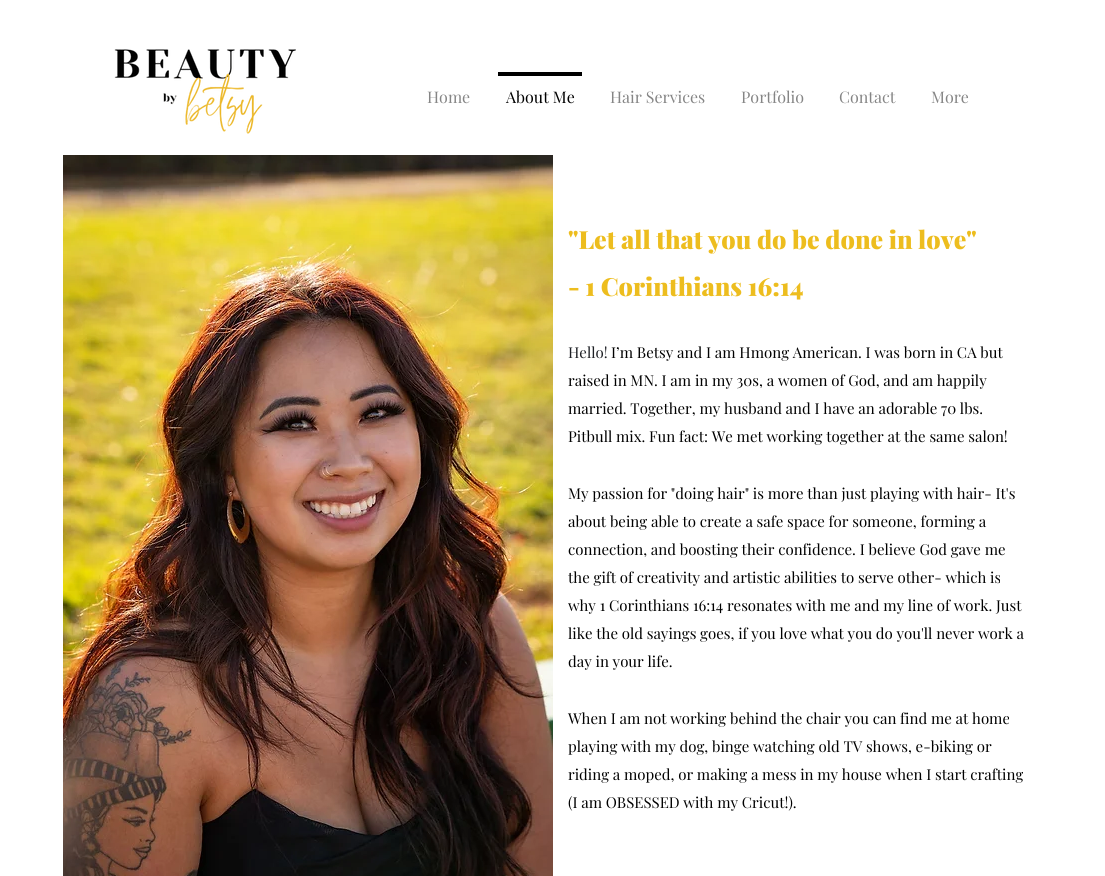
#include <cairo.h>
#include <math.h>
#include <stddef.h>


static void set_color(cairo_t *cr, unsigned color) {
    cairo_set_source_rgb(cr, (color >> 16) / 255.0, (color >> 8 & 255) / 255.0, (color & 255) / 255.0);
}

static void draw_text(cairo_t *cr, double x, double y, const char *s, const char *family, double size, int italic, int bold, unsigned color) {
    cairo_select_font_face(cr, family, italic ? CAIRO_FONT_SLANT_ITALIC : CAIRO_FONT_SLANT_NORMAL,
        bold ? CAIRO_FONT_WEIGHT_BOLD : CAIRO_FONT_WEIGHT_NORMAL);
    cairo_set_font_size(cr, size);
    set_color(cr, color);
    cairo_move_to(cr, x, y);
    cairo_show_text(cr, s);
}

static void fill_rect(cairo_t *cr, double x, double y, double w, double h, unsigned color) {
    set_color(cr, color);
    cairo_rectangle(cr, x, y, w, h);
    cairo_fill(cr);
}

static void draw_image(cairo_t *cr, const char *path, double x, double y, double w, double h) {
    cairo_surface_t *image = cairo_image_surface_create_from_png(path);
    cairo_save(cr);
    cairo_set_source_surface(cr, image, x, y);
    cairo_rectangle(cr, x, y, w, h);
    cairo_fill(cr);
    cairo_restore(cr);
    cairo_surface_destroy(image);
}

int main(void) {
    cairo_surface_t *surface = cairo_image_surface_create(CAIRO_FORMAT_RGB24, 1105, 876);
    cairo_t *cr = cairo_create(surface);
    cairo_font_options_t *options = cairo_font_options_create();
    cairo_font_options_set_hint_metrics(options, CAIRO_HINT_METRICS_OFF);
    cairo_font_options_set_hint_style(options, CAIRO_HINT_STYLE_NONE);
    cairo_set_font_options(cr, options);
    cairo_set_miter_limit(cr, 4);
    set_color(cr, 0xFFFFFF);
    cairo_paint(cr);
    draw_image(cr, "assets/img1.png", 114, 49, 182, 85);
    draw_text(cr, 427, 103, "Home", "Playfair Display", 16, 0, 0, 0x858585);
    fill_rect(cr, 498, 72, 84, 4, 0x000000);
    draw_text(cr, 506, 103, "About Me", "Playfair Display", 16, 0, 0, 0x000000);
    draw_text(cr, 610, 103, "Hair Services", "Playfair Display", 16, 0, 0, 0x858585);
    draw_text(cr, 741, 103, "Portfolio", "Playfair Display", 16, 0, 0, 0x858585);
    draw_text(cr, 839, 103, "Contact", "Playfair Display", 16, 0, 0, 0x858585);
    draw_text(cr, 931, 103, "More", "Playfair Display", 16, 0, 0, 0x858585);
    draw_image(cr, "assets/img2.png", 63, 155, 490, 721);
    draw_text(cr, 568, 249, "\"Let all that you do be done in love\"", "Playfair Display Black", 25, 0, 0, 0xEDBD1E);
    draw_text(cr, 568, 296, "- 1 Corinthians 16:14", "Playfair Display Black", 25, 0, 0, 0xEDBD1E);
    draw_text(cr, 568, 358, "Hello!", "Playfair Display", 15, 0, 0, 0x1E2025);
    draw_text(cr, 611, 358, "I’m Betsy and I am Hmong American. I was born in CA but", "Playfair Display", 15, 0, 0, 0x000000);
    draw_text(cr, 568, 386, "raised in MN. I am in my 30s, a women of God, and am happily", "Playfair Display", 15, 0, 0, 0x000000);
    draw_text(cr, 568, 414, "married. Together, my husband and I have an adorable 70 lbs.", "Playfair Display", 15, 0, 0, 0x000000);
    draw_text(cr, 568, 442, "Pitbull mix. Fun fact: We met working together at the same salon!", "Playfair Display", 15, 0, 0, 0x000000);
    draw_text(cr, 568, 499, "My passion for \"doing hair\" is more than just playing with hair- It's", "Playfair Display", 15, 0, 0, 0x000000);
    draw_text(cr, 568, 527, "about being able to create a safe space for someone, forming a", "Playfair Display", 15, 0, 0, 0x000000);
    draw_text(cr, 568, 555, "connection, and boosting their confidence. I believe God gave me", "Playfair Display", 15, 0, 0, 0x000000);
    draw_text(cr, 568, 583, "the gift of creativity and artistic abilities to serve other- which is", "Playfair Display", 15, 0, 0, 0x000000);
    draw_text(cr, 568, 611, "why 1 Corinthians 16:14 resonates with me and my line of work. Just", "Playfair Display", 15, 0, 0, 0x000000);
    draw_text(cr, 568, 639, "like the old sayings goes, if you love what you do you'll never work a", "Playfair Display", 15, 0, 0, 0x000000);
    draw_text(cr, 568, 667, "day in your life.", "Playfair Display", 15, 0, 0, 0x000000);
    draw_text(cr, 568, 724, "When I am not working behind the chair you can find me at home", "Playfair Display", 15, 0, 0, 0x000000);
    draw_text(cr, 568, 752, "playing with my dog, binge watching old TV shows, e-biking or", "Playfair Display", 15, 0, 0, 0x000000);
    draw_text(cr, 568, 780, "riding a moped, or making a mess in my house when I start crafting", "Playfair Display", 15, 0, 0, 0x000000);
    draw_text(cr, 568, 808, "(I am OBSESSED with my Cricut!).", "Playfair Display", 15, 0, 0, 0x000000);
    cairo_surface_write_to_png(surface, "output.png");
    cairo_font_options_destroy(options);
    cairo_destroy(cr);
    cairo_surface_destroy(surface);
    return 0;
}
